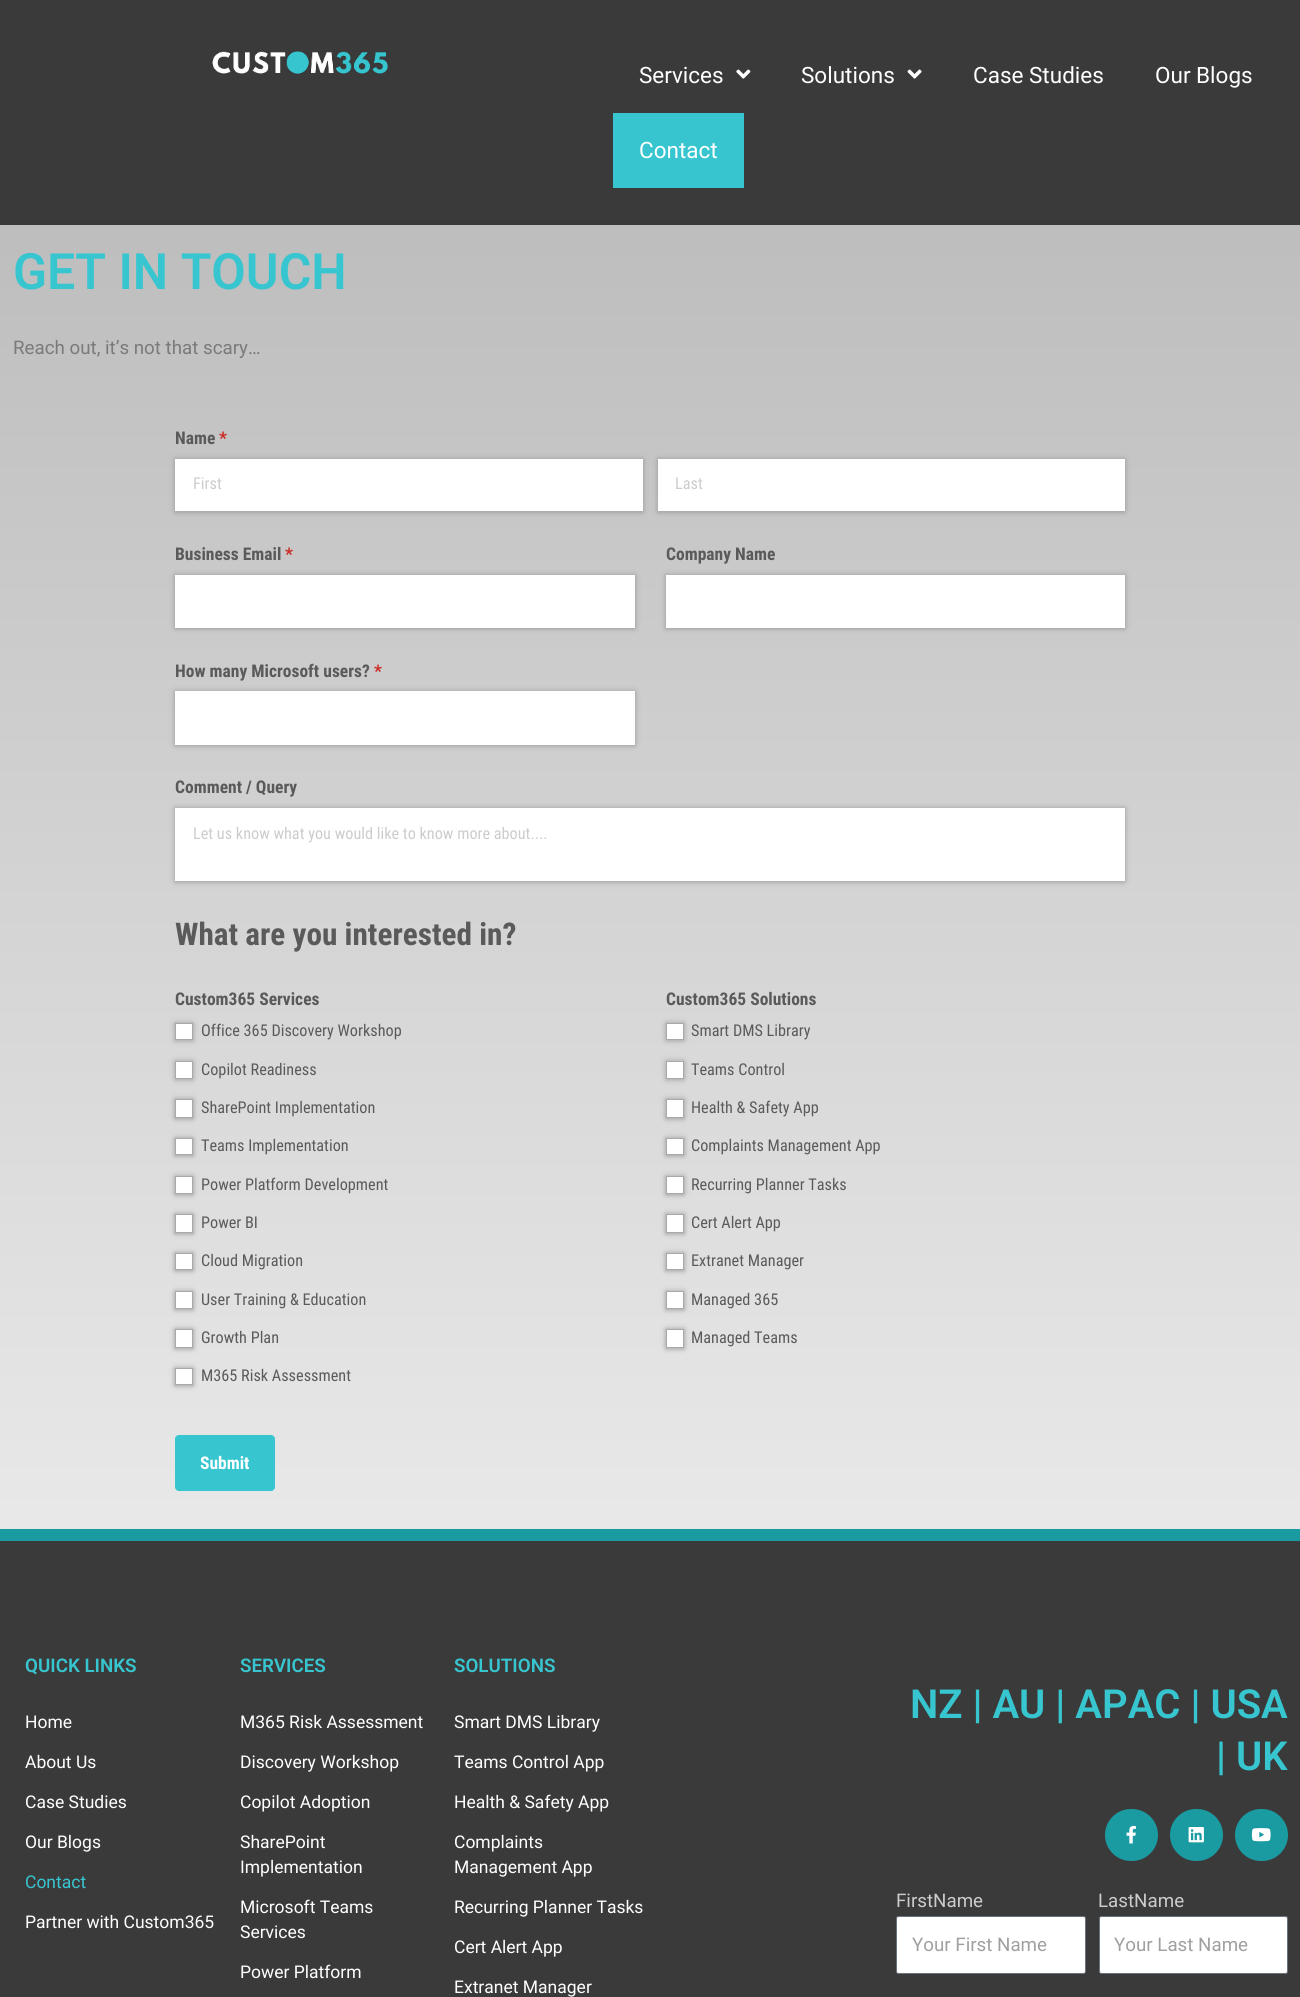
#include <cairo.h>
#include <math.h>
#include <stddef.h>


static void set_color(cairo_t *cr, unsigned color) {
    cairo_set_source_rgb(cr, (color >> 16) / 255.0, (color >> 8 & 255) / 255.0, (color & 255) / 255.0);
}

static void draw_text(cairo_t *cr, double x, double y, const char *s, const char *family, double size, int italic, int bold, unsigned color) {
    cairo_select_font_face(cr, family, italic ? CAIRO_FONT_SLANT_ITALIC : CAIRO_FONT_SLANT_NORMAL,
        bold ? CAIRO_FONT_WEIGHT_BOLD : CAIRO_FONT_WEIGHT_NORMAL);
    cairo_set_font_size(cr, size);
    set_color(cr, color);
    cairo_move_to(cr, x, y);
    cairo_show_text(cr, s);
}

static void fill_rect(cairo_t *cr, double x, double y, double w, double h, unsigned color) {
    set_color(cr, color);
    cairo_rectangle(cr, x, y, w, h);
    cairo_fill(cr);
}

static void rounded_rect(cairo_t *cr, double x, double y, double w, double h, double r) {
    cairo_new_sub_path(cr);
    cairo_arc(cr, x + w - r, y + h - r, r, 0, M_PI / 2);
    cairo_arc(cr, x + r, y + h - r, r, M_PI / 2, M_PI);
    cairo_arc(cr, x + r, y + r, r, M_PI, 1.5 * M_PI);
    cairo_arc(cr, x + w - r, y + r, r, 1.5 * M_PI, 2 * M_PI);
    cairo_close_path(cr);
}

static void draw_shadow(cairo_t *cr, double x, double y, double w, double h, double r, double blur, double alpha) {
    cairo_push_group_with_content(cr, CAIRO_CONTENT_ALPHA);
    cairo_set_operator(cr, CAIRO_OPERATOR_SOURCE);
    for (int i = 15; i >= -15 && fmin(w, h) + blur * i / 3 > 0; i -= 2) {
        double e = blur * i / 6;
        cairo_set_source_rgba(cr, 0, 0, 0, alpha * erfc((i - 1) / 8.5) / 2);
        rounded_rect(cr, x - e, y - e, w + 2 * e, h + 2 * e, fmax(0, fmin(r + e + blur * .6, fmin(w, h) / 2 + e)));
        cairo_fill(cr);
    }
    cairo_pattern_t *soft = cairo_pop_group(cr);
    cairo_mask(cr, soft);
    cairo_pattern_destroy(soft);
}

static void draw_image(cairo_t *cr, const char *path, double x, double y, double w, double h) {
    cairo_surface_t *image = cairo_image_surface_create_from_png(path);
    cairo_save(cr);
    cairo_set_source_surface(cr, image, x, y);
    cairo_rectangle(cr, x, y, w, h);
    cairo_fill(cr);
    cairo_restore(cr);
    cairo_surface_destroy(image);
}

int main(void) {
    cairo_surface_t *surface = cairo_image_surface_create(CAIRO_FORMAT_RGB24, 1300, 1997);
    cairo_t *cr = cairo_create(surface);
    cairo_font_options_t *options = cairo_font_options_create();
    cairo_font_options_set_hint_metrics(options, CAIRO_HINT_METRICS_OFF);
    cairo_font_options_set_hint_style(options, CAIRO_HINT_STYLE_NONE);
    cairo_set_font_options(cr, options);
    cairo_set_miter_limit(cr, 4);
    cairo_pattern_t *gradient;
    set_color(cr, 0xFFFFFF);
    cairo_paint(cr);
    gradient = cairo_pattern_create_linear(650, 0, 650, 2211);
    cairo_pattern_add_color_stop_rgba(gradient, 0, 0.714, 0.714, 0.714, 1);
    cairo_pattern_add_color_stop_rgba(gradient, 1, 1, 1, 1, 1);
    cairo_set_source(cr, gradient);
    cairo_pattern_destroy(gradient);
    cairo_rectangle(cr, 0, 225, 1300, 1304);
    cairo_fill(cr);
    fill_rect(cr, 0, 0, 1300, 225, 0x3A3A3A);
    draw_image(cr, "assets/img1.png", 212, 51, 176, 23);
    draw_text(cr, 639, 83, "Services", "Roboto", 22.5, 0, 0, 0xFFFFFF);
    draw_image(cr, "assets/img2.png", 736, 69, 15, 10);
    draw_text(cr, 801, 83, "Solutions", "Roboto", 22.5, 0, 0, 0xFFFFFF);
    draw_image(cr, "assets/img3.png", 907, 69, 15, 10);
    draw_text(cr, 973, 83, "Case Studies", "Roboto", 22.5, 0, 0, 0xFFFFFF);
    draw_text(cr, 1155, 83, "Our Blogs", "Roboto", 22.5, 0, 0, 0xFFFFFF);
    fill_rect(cr, 613, 113, 131, 75, 0x37C6D0);
    draw_text(cr, 639, 158, "Contact", "Roboto", 22.5, 0, 0, 0xFFFFFF);
    draw_text(cr, 13, 289, "GET IN TOUCH", "Roboto SemiBold", 50, 0, 0, 0x37C6D0);
    draw_text(cr, 13, 354, "Reach out, it’s not that scary…", "Roboto", 18.75, 0, 0, 0x7A7A7A);
    draw_text(cr, 175, 444, "Name", "Roboto Condensed", 17.5, 0, 1, 0x5A5A5A);
    draw_text(cr, 219, 444, "*", "Roboto Condensed", 17.5, 0, 1, 0xCC2A24);
    set_color(cr, 0x000000);
    draw_shadow(cr, 175, 460, 468, 53, 0, 2, 0.1);
    set_color(cr, 0x939393);
    draw_shadow(cr, 175, 459, 468, 52, 0, 3, 0.7);
    fill_rect(cr, 175, 459, 468, 52, 0xFFFFFF);
    draw_text(cr, 193, 489, "First", "Roboto Condensed", 16.25, 0, 0, 0xCCCCCC);
    set_color(cr, 0x000000);
    draw_shadow(cr, 658, 460, 467, 53, 0, 2, 0.1);
    set_color(cr, 0x939393);
    draw_shadow(cr, 658, 459, 467, 52, 0, 3, 0.7);
    fill_rect(cr, 658, 459, 467, 52, 0xFFFFFF);
    draw_text(cr, 675, 489, "Last", "Roboto Condensed", 16.25, 0, 0, 0xCCCCCC);
    draw_text(cr, 175, 560, "Business Email", "Roboto Condensed", 17.5, 0, 1, 0x5A5A5A);
    draw_text(cr, 285, 560, "*", "Roboto Condensed", 17.5, 0, 1, 0xCC2A24);
    set_color(cr, 0x939393);
    draw_shadow(cr, 175, 575, 460, 53, 0, 3, 0.7);
    set_color(cr, 0x000000);
    draw_shadow(cr, 175, 576, 460, 53, 0, 2, 0.1);
    fill_rect(cr, 175, 575, 460, 53, 0xFFFFFF);
    draw_text(cr, 666, 560, "Company Name", "Roboto Condensed", 17.5, 0, 1, 0x5A5A5A);
    set_color(cr, 0x939393);
    draw_shadow(cr, 666, 575, 459, 53, 0, 3, 0.7);
    set_color(cr, 0x000000);
    draw_shadow(cr, 666, 576, 459, 53, 0, 2, 0.1);
    fill_rect(cr, 666, 575, 459, 53, 0xFFFFFF);
    draw_text(cr, 175, 677, "How many Microsoft users?", "Roboto Condensed", 17.5, 0, 1, 0x5A5A5A);
    draw_text(cr, 374, 677, "*", "Roboto Condensed", 17.5, 0, 1, 0xCC2A24);
    set_color(cr, 0x939393);
    draw_shadow(cr, 175, 691, 460, 54, 0, 3, 0.7);
    set_color(cr, 0x000000);
    draw_shadow(cr, 175, 693, 460, 53, 0, 2, 0.1);
    fill_rect(cr, 175, 691, 460, 54, 0xFFFFFF);
    draw_text(cr, 175, 793, "Comment / Query", "Roboto Condensed", 17.5, 0, 1, 0x5A5A5A);
    set_color(cr, 0x000000);
    draw_shadow(cr, 175, 809, 950, 74, 0, 2, 0.1);
    set_color(cr, 0x939393);
    draw_shadow(cr, 175, 808, 950, 73, 0, 3, 0.7);
    fill_rect(cr, 175, 808, 950, 73, 0xFFFFFF);
    draw_text(cr, 193, 839, "Let us know what you would like to know more about....", "Roboto Condensed", 16.25, 0, 0, 0xCCCCCC);
    draw_text(cr, 175, 945, "What are you interested in?", "Roboto Condensed", 31.25, 0, 1, 0x5A5A5A);
    draw_text(cr, 175, 1005, "Custom365 Services", "Roboto Condensed", 17.5, 0, 1, 0x5A5A5A);
    set_color(cr, 0x000000);
    draw_shadow(cr, 175, 1024, 18, 17, 0, 2, 0.1);
    set_color(cr, 0x939393);
    draw_shadow(cr, 175, 1023, 18, 17, 0, 3, 0.7);
    set_color(cr, 0xFFFFFF);
    cairo_rectangle(cr, 175.5, 1023.5, 17, 16);
    cairo_fill_preserve(cr);
    set_color(cr, 0xA9A9A9);
    cairo_set_line_width(cr, 1);
    cairo_stroke(cr);
    draw_text(cr, 201, 1036, "Office 365 Discovery Workshop", "Roboto Condensed", 16.25, 0, 0, 0x5A5A5A);
    set_color(cr, 0x000000);
    draw_shadow(cr, 175, 1063, 18, 17, 0, 2, 0.1);
    set_color(cr, 0x939393);
    draw_shadow(cr, 175, 1061, 18, 18, 0, 3, 0.7);
    set_color(cr, 0xFFFFFF);
    cairo_rectangle(cr, 175.5, 1061.5, 17, 17);
    cairo_fill_preserve(cr);
    set_color(cr, 0xA9A9A9);
    cairo_stroke(cr);
    draw_text(cr, 201, 1075, "Copilot Readiness", "Roboto Condensed", 16.25, 0, 0, 0x5A5A5A);
    set_color(cr, 0x000000);
    draw_shadow(cr, 175, 1100, 18, 19, 0, 2, 0.1);
    set_color(cr, 0x939393);
    draw_shadow(cr, 175, 1100, 18, 19, 0, 2, 0.2);
    draw_shadow(cr, 175, 1099, 18, 19, 0, 3, 0.7);
    set_color(cr, 0xFFFFFF);
    cairo_rectangle(cr, 175.5, 1099.5, 17, 18);
    cairo_fill_preserve(cr);
    set_color(cr, 0xA9A9A9);
    cairo_stroke(cr);
    draw_text(cr, 201, 1113, "SharePoint Implementation", "Roboto Condensed", 16.25, 0, 0, 0x5A5A5A);
    set_color(cr, 0x000000);
    draw_shadow(cr, 175, 1139, 18, 17, 0, 2, 0.1);
    set_color(cr, 0x939393);
    draw_shadow(cr, 175, 1139, 18, 17, 0, 2, 0.2);
    draw_shadow(cr, 175, 1138, 18, 17, 0, 3, 0.7);
    set_color(cr, 0xFFFFFF);
    cairo_rectangle(cr, 175.5, 1138.5, 17, 16);
    cairo_fill_preserve(cr);
    set_color(cr, 0xA9A9A9);
    cairo_stroke(cr);
    draw_text(cr, 201, 1151, "Teams Implementation", "Roboto Condensed", 16.25, 0, 0, 0x5A5A5A);
    set_color(cr, 0x000000);
    draw_shadow(cr, 175, 1178, 18, 17, 0, 2, 0.1);
    set_color(cr, 0x939393);
    draw_shadow(cr, 175, 1178, 18, 17, 0, 2, 0.2);
    draw_shadow(cr, 175, 1176, 18, 18, 0, 3, 0.7);
    set_color(cr, 0xFFFFFF);
    cairo_rectangle(cr, 175.5, 1176.5, 17, 17);
    cairo_fill_preserve(cr);
    set_color(cr, 0xA9A9A9);
    cairo_stroke(cr);
    draw_text(cr, 201, 1190, "Power Platform Development", "Roboto Condensed", 16.25, 0, 0, 0x5A5A5A);
    set_color(cr, 0x000000);
    draw_shadow(cr, 175, 1215, 18, 19, 0, 2, 0.1);
    set_color(cr, 0x939393);
    draw_shadow(cr, 175, 1215, 18, 19, 0, 2, 0.2);
    draw_shadow(cr, 175, 1214, 18, 19, 0, 3, 0.7);
    set_color(cr, 0xFFFFFF);
    cairo_rectangle(cr, 175.5, 1214.5, 17, 18);
    cairo_fill_preserve(cr);
    set_color(cr, 0xA9A9A9);
    cairo_stroke(cr);
    draw_text(cr, 201, 1228, "Power BI", "Roboto Condensed", 16.25, 0, 0, 0x5A5A5A);
    set_color(cr, 0x000000);
    draw_shadow(cr, 175, 1254, 18, 17, 0, 2, 0.1);
    set_color(cr, 0x939393);
    draw_shadow(cr, 175, 1254, 18, 17, 0, 2, 0.2);
    draw_shadow(cr, 175, 1253, 18, 17, 0, 3, 0.7);
    set_color(cr, 0xFFFFFF);
    cairo_rectangle(cr, 175.5, 1253.5, 17, 16);
    cairo_fill_preserve(cr);
    set_color(cr, 0xA9A9A9);
    cairo_stroke(cr);
    draw_text(cr, 201, 1266, "Cloud Migration", "Roboto Condensed", 16.25, 0, 0, 0x5A5A5A);
    set_color(cr, 0x000000);
    draw_shadow(cr, 175, 1293, 18, 17, 0, 2, 0.1);
    set_color(cr, 0x939393);
    draw_shadow(cr, 175, 1293, 18, 17, 0, 2, 0.2);
    draw_shadow(cr, 175, 1291, 18, 18, 0, 3, 0.7);
    set_color(cr, 0xFFFFFF);
    cairo_rectangle(cr, 175.5, 1291.5, 17, 17);
    cairo_fill_preserve(cr);
    set_color(cr, 0xA9A9A9);
    cairo_stroke(cr);
    draw_text(cr, 201, 1305, "User Training & Education", "Roboto Condensed", 16.25, 0, 0, 0x5A5A5A);
    set_color(cr, 0x000000);
    draw_shadow(cr, 175, 1330, 18, 19, 0, 2, 0.1);
    set_color(cr, 0x939393);
    draw_shadow(cr, 175, 1330, 18, 19, 0, 2, 0.2);
    draw_shadow(cr, 175, 1329, 18, 19, 0, 3, 0.7);
    set_color(cr, 0xFFFFFF);
    cairo_rectangle(cr, 175.5, 1329.5, 17, 18);
    cairo_fill_preserve(cr);
    set_color(cr, 0xA9A9A9);
    cairo_stroke(cr);
    draw_text(cr, 201, 1343, "Growth Plan", "Roboto Condensed", 16.25, 0, 0, 0x5A5A5A);
    set_color(cr, 0x000000);
    draw_shadow(cr, 175, 1369, 18, 17, 0, 2, 0.1);
    set_color(cr, 0x939393);
    draw_shadow(cr, 175, 1369, 18, 17, 0, 2, 0.2);
    draw_shadow(cr, 175, 1368, 18, 17, 0, 3, 0.7);
    set_color(cr, 0xFFFFFF);
    cairo_rectangle(cr, 175.5, 1368.5, 17, 16);
    cairo_fill_preserve(cr);
    set_color(cr, 0xA9A9A9);
    cairo_stroke(cr);
    draw_text(cr, 201, 1381, "M365 Risk Assessment", "Roboto Condensed", 16.25, 0, 0, 0x5A5A5A);
    draw_text(cr, 666, 1005, "Custom365 Solutions", "Roboto Condensed", 17.5, 0, 1, 0x5A5A5A);
    set_color(cr, 0x000000);
    draw_shadow(cr, 666, 1024, 18, 17, 0, 2, 0.1);
    set_color(cr, 0x939393);
    draw_shadow(cr, 666, 1023, 18, 17, 0, 3, 0.7);
    set_color(cr, 0xFFFFFF);
    cairo_rectangle(cr, 666.5, 1023.5, 17, 16);
    cairo_fill_preserve(cr);
    set_color(cr, 0xA9A9A9);
    cairo_stroke(cr);
    draw_text(cr, 691, 1036, "Smart DMS Library", "Roboto Condensed", 16.25, 0, 0, 0x5A5A5A);
    set_color(cr, 0x000000);
    draw_shadow(cr, 666, 1063, 18, 17, 0, 2, 0.1);
    set_color(cr, 0x939393);
    draw_shadow(cr, 666, 1061, 18, 18, 0, 3, 0.7);
    set_color(cr, 0xFFFFFF);
    cairo_rectangle(cr, 666.5, 1061.5, 17, 17);
    cairo_fill_preserve(cr);
    set_color(cr, 0xA9A9A9);
    cairo_stroke(cr);
    draw_text(cr, 691, 1075, "Teams Control", "Roboto Condensed", 16.25, 0, 0, 0x5A5A5A);
    set_color(cr, 0x000000);
    draw_shadow(cr, 666, 1100, 18, 19, 0, 2, 0.1);
    set_color(cr, 0x939393);
    draw_shadow(cr, 666, 1100, 18, 19, 0, 2, 0.2);
    draw_shadow(cr, 666, 1099, 18, 19, 0, 3, 0.7);
    set_color(cr, 0xFFFFFF);
    cairo_rectangle(cr, 666.5, 1099.5, 17, 18);
    cairo_fill_preserve(cr);
    set_color(cr, 0xA9A9A9);
    cairo_stroke(cr);
    draw_text(cr, 691, 1113, "Health & Safety App", "Roboto Condensed", 16.25, 0, 0, 0x5A5A5A);
    set_color(cr, 0x000000);
    draw_shadow(cr, 666, 1139, 18, 17, 0, 2, 0.1);
    set_color(cr, 0x939393);
    draw_shadow(cr, 666, 1139, 18, 17, 0, 2, 0.2);
    draw_shadow(cr, 666, 1138, 18, 17, 0, 3, 0.7);
    set_color(cr, 0xFFFFFF);
    cairo_rectangle(cr, 666.5, 1138.5, 17, 16);
    cairo_fill_preserve(cr);
    set_color(cr, 0xA9A9A9);
    cairo_stroke(cr);
    draw_text(cr, 691, 1151, "Complaints Management App", "Roboto Condensed", 16.25, 0, 0, 0x5A5A5A);
    set_color(cr, 0x000000);
    draw_shadow(cr, 666, 1178, 18, 17, 0, 2, 0.1);
    set_color(cr, 0x939393);
    draw_shadow(cr, 666, 1178, 18, 17, 0, 2, 0.2);
    draw_shadow(cr, 666, 1176, 18, 18, 0, 3, 0.7);
    set_color(cr, 0xFFFFFF);
    cairo_rectangle(cr, 666.5, 1176.5, 17, 17);
    cairo_fill_preserve(cr);
    set_color(cr, 0xA9A9A9);
    cairo_stroke(cr);
    draw_text(cr, 691, 1190, "Recurring Planner Tasks", "Roboto Condensed", 16.25, 0, 0, 0x5A5A5A);
    set_color(cr, 0x000000);
    draw_shadow(cr, 666, 1215, 18, 19, 0, 2, 0.1);
    set_color(cr, 0x939393);
    draw_shadow(cr, 666, 1215, 18, 19, 0, 2, 0.2);
    draw_shadow(cr, 666, 1214, 18, 19, 0, 3, 0.7);
    set_color(cr, 0xFFFFFF);
    cairo_rectangle(cr, 666.5, 1214.5, 17, 18);
    cairo_fill_preserve(cr);
    set_color(cr, 0xA9A9A9);
    cairo_stroke(cr);
    draw_text(cr, 691, 1228, "Cert Alert App", "Roboto Condensed", 16.25, 0, 0, 0x5A5A5A);
    set_color(cr, 0x000000);
    draw_shadow(cr, 666, 1254, 18, 17, 0, 2, 0.1);
    set_color(cr, 0x939393);
    draw_shadow(cr, 666, 1254, 18, 17, 0, 2, 0.2);
    draw_shadow(cr, 666, 1253, 18, 17, 0, 3, 0.7);
    set_color(cr, 0xFFFFFF);
    cairo_rectangle(cr, 666.5, 1253.5, 17, 16);
    cairo_fill_preserve(cr);
    set_color(cr, 0xA9A9A9);
    cairo_stroke(cr);
    draw_text(cr, 691, 1266, "Extranet Manager", "Roboto Condensed", 16.25, 0, 0, 0x5A5A5A);
    set_color(cr, 0x000000);
    draw_shadow(cr, 666, 1293, 18, 17, 0, 2, 0.1);
    set_color(cr, 0x939393);
    draw_shadow(cr, 666, 1293, 18, 17, 0, 2, 0.2);
    draw_shadow(cr, 666, 1291, 18, 18, 0, 3, 0.7);
    set_color(cr, 0xFFFFFF);
    cairo_rectangle(cr, 666.5, 1291.5, 17, 17);
    cairo_fill_preserve(cr);
    set_color(cr, 0xA9A9A9);
    cairo_stroke(cr);
    draw_text(cr, 691, 1305, "Managed 365", "Roboto Condensed", 16.25, 0, 0, 0x5A5A5A);
    set_color(cr, 0x000000);
    draw_shadow(cr, 666, 1330, 18, 19, 0, 2, 0.1);
    set_color(cr, 0x939393);
    draw_shadow(cr, 666, 1330, 18, 19, 0, 2, 0.2);
    draw_shadow(cr, 666, 1329, 18, 19, 0, 3, 0.7);
    set_color(cr, 0xFFFFFF);
    cairo_rectangle(cr, 666.5, 1329.5, 17, 18);
    cairo_fill_preserve(cr);
    set_color(cr, 0xA9A9A9);
    cairo_stroke(cr);
    draw_text(cr, 691, 1343, "Managed Teams", "Roboto Condensed", 16.25, 0, 0, 0x5A5A5A);
    set_color(cr, 0x37C6D0);
    rounded_rect(cr, 175.5, 1435.5, 99, 55, 3.5);
    cairo_fill_preserve(cr);
    cairo_stroke(cr);
    draw_text(cr, 200, 1469, "Submit", "Roboto Condensed", 17.5, 0, 1, 0xFFFFFF);
    fill_rect(cr, 0, 1541, 1300, 456, 0x3A3A3A);
    fill_rect(cr, 0, 1529, 1300, 12, 0x1A9BA1);
    draw_text(cr, 25, 1672, "QUICK LINKS", "Roboto SemiBold", 18.75, 0, 0, 0x37C6D0);
    draw_text(cr, 25, 1728, "Home", "Roboto", 17.5, 0, 0, 0xFFFFFF);
    draw_text(cr, 25, 1768, "About Us", "Roboto", 17.5, 0, 0, 0xFFFFFF);
    draw_text(cr, 25, 1808, "Case Studies", "Roboto", 17.5, 0, 0, 0xFFFFFF);
    draw_text(cr, 25, 1848, "Our Blogs", "Roboto", 17.5, 0, 0, 0xFFFFFF);
    draw_text(cr, 25, 1888, "Contact", "Roboto", 17.5, 0, 0, 0x37C6D0);
    draw_text(cr, 25, 1928, "Partner with Custom365", "Roboto", 17.5, 0, 0, 0xFFFFFF);
    draw_text(cr, 240, 1672, "SERVICES", "Roboto SemiBold", 18.75, 0, 0, 0x37C6D0);
    draw_text(cr, 240, 1728, "M365 Risk Assessment", "Roboto", 17.5, 0, 0, 0xFFFFFF);
    draw_text(cr, 240, 1768, "Discovery Workshop", "Roboto", 17.5, 0, 0, 0xFFFFFF);
    draw_text(cr, 240, 1808, "Copilot Adoption", "Roboto", 17.5, 0, 0, 0xFFFFFF);
    draw_text(cr, 240, 1848, "SharePoint", "Roboto", 17.5, 0, 0, 0xFFFFFF);
    draw_text(cr, 240, 1873, "Implementation", "Roboto", 17.5, 0, 0, 0xFFFFFF);
    draw_text(cr, 240, 1913, "Microsoft Teams", "Roboto", 17.5, 0, 0, 0xFFFFFF);
    draw_text(cr, 240, 1938, "Services", "Roboto", 17.5, 0, 0, 0xFFFFFF);
    draw_text(cr, 240, 1978, "Power Platform", "Roboto", 17.5, 0, 0, 0xFFFFFF);
    draw_text(cr, 454, 1672, "SOLUTIONS", "Roboto SemiBold", 18.75, 0, 0, 0x37C6D0);
    draw_text(cr, 454, 1728, "Smart DMS Library", "Roboto", 17.5, 0, 0, 0xFFFFFF);
    draw_text(cr, 454, 1768, "Teams Control App", "Roboto", 17.5, 0, 0, 0xFFFFFF);
    draw_text(cr, 454, 1808, "Health & Safety App", "Roboto", 17.5, 0, 0, 0xFFFFFF);
    draw_text(cr, 454, 1848, "Complaints", "Roboto", 17.5, 0, 0, 0xFFFFFF);
    draw_text(cr, 454, 1873, "Management App", "Roboto", 17.5, 0, 0, 0xFFFFFF);
    draw_text(cr, 454, 1913, "Recurring Planner Tasks", "Roboto", 17.5, 0, 0, 0xFFFFFF);
    draw_text(cr, 454, 1953, "Cert Alert App", "Roboto", 17.5, 0, 0, 0xFFFFFF);
    draw_text(cr, 454, 1993, "Extranet Manager", "Roboto", 17.5, 0, 0, 0xFFFFFF);
    draw_text(cr, 910, 1718, "NZ | AU | APAC | USA", "Roboto SemiBold", 40, 0, 0, 0x37C6D0);
    draw_text(cr, 1216, 1770, "| UK", "Roboto SemiBold", 40, 0, 0, 0x37C6D0);
    set_color(cr, 0x1A9BA1);
    rounded_rect(cr, 1105, 1809, 53, 52, 26);
    cairo_fill(cr);
    draw_image(cr, "assets/img4.png", 1126, 1825, 10, 19);
    rounded_rect(cr, 1170, 1809, 53, 52, 26);
    cairo_fill(cr);
    draw_image(cr, "assets/img5.png", 1188, 1827, 16, 16);
    rounded_rect(cr, 1235, 1809, 53, 52, 26);
    cairo_fill(cr);
    draw_image(cr, "assets/img6.png", 1251, 1828, 20, 14);
    draw_text(cr, 896, 1907, "FirstName", "Roboto", 18.75, 0, 0, 0xCCCCCC);
    set_color(cr, 0xFFFFFF);
    rounded_rect(cr, 896.5, 1916.5, 189, 57, 2);
    cairo_fill_preserve(cr);
    set_color(cr, 0x69727D);
    cairo_stroke(cr);
    draw_text(cr, 912, 1951, "Your First Name", "Roboto", 18.75, 0, 0, 0xA0A0A0);
    draw_text(cr, 1098, 1907, "LastName", "Roboto", 18.75, 0, 0, 0xCCCCCC);
    set_color(cr, 0xFFFFFF);
    rounded_rect(cr, 1099.5, 1916.5, 188, 57, 2);
    cairo_fill_preserve(cr);
    set_color(cr, 0x69727D);
    cairo_stroke(cr);
    draw_text(cr, 1114, 1951, "Your Last Name", "Roboto", 18.75, 0, 0, 0xA0A0A0);
    cairo_surface_write_to_png(surface, "output.png");
    cairo_font_options_destroy(options);
    cairo_destroy(cr);
    cairo_surface_destroy(surface);
    return 0;
}
